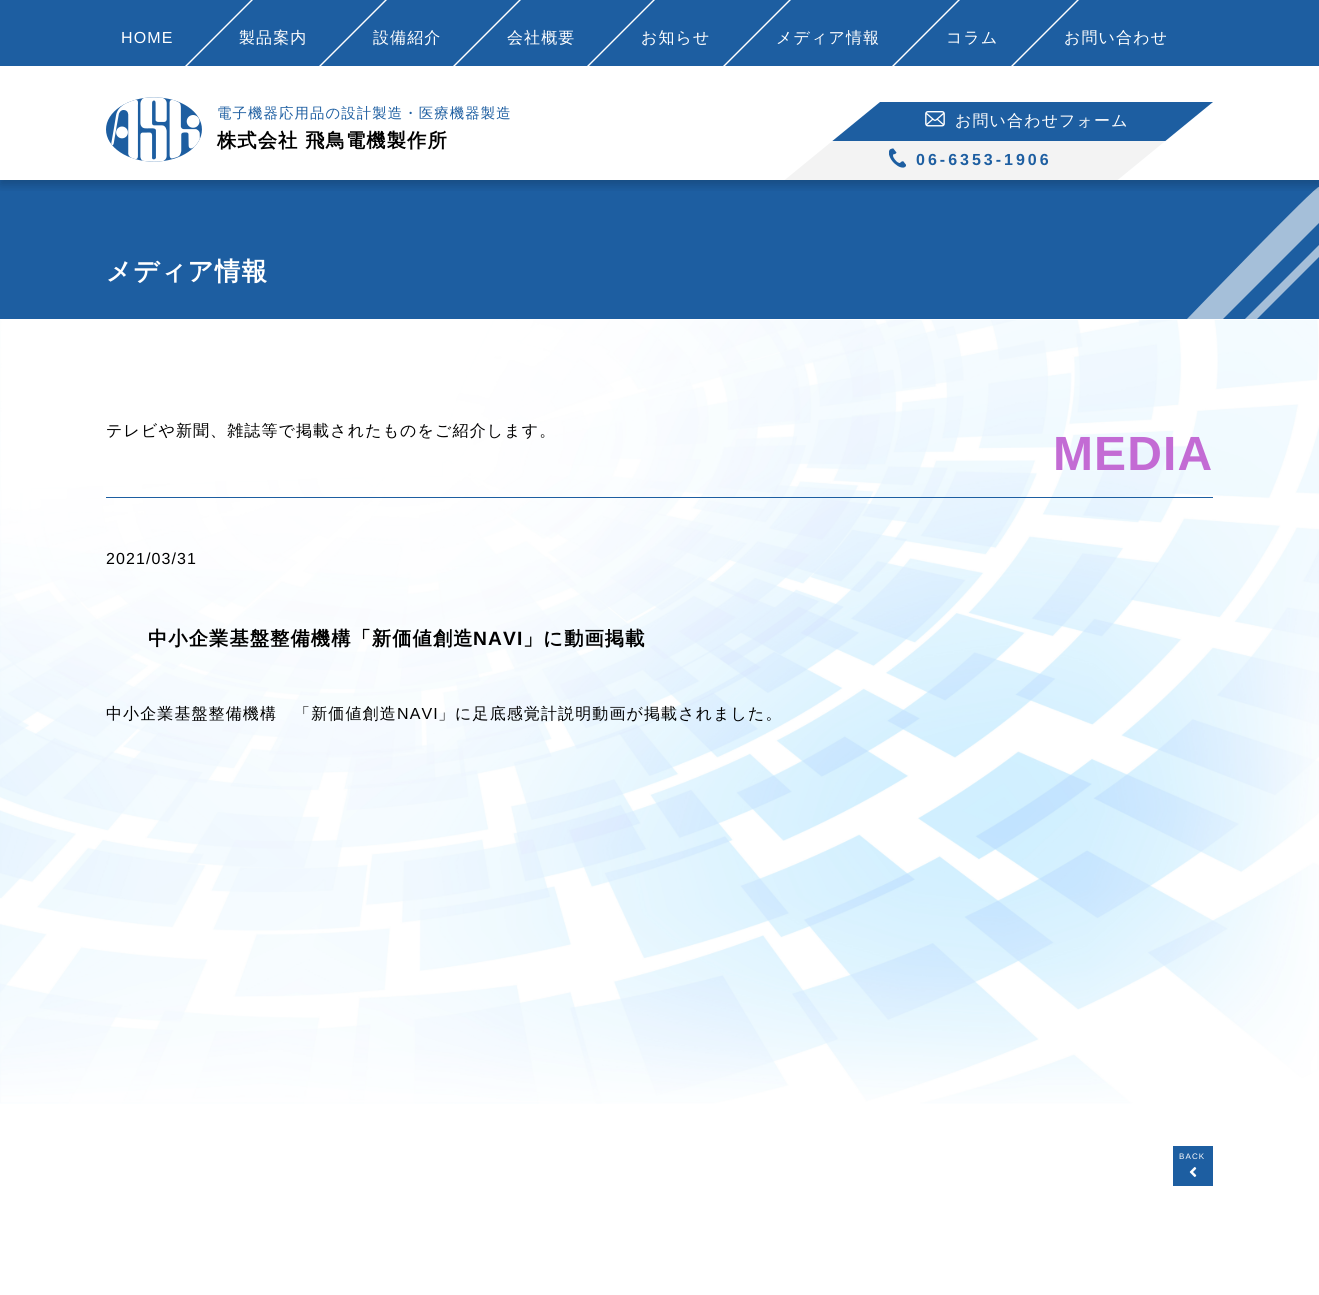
#include <cairo.h>
#include <math.h>
#include <stddef.h>


static void set_color(cairo_t *cr, unsigned color) {
    cairo_set_source_rgb(cr, (color >> 16) / 255.0, (color >> 8 & 255) / 255.0, (color & 255) / 255.0);
}

static void draw_spaced(cairo_t *cr, double x, double y, const char *s, double letter, double word) {
    cairo_move_to(cr, x, y);
    while (*s) {
        char ch[5] = {0};
        int n = 0;
        do ch[n++] = *s++; while ((*s & 0xC0) == 0x80);
        cairo_show_text(cr, ch);
        cairo_rel_move_to(cr, letter + word * (*ch == ' '), 0);
    }
}

static void fill_rect(cairo_t *cr, double x, double y, double w, double h, unsigned color) {
    set_color(cr, color);
    cairo_rectangle(cr, x, y, w, h);
    cairo_fill(cr);
}

static void rounded_rect(cairo_t *cr, double x, double y, double w, double h, double r) {
    cairo_new_sub_path(cr);
    cairo_arc(cr, x + w - r, y + h - r, r, 0, M_PI / 2);
    cairo_arc(cr, x + r, y + h - r, r, M_PI / 2, M_PI);
    cairo_arc(cr, x + r, y + r, r, M_PI, 1.5 * M_PI);
    cairo_arc(cr, x + w - r, y + r, r, 1.5 * M_PI, 2 * M_PI);
    cairo_close_path(cr);
}

static void draw_shadow(cairo_t *cr, double x, double y, double w, double h, double r, double blur, double alpha) {
    cairo_push_group_with_content(cr, CAIRO_CONTENT_ALPHA);
    cairo_set_operator(cr, CAIRO_OPERATOR_SOURCE);
    for (int i = 15; i >= -15 && fmin(w, h) + blur * i / 3 > 0; i -= 2) {
        double e = blur * i / 6;
        cairo_set_source_rgba(cr, 0, 0, 0, alpha * erfc((i - 1) / 8.5) / 2);
        rounded_rect(cr, x - e, y - e, w + 2 * e, h + 2 * e, fmax(0, fmin(r + e + blur * .6, fmin(w, h) / 2 + e)));
        cairo_fill(cr);
    }
    cairo_pattern_t *soft = cairo_pop_group(cr);
    cairo_mask(cr, soft);
    cairo_pattern_destroy(soft);
}

static void draw_image(cairo_t *cr, const char *path, double x, double y, double w, double h) {
    cairo_surface_t *image = cairo_image_surface_create_from_png(path);
    cairo_save(cr);
    cairo_set_source_surface(cr, image, x, y);
    cairo_rectangle(cr, x, y, w, h);
    cairo_fill(cr);
    cairo_restore(cr);
    cairo_surface_destroy(image);
}

int main(void) {
    cairo_surface_t *surface = cairo_image_surface_create(CAIRO_FORMAT_RGB24, 1319, 1295);
    cairo_t *cr = cairo_create(surface);
    cairo_font_options_t *options = cairo_font_options_create();
    cairo_font_options_set_hint_metrics(options, CAIRO_HINT_METRICS_OFF);
    cairo_font_options_set_hint_style(options, CAIRO_HINT_STYLE_NONE);
    cairo_set_font_options(cr, options);
    cairo_set_miter_limit(cr, 4);
    set_color(cr, 0xFFFFFF);
    cairo_paint(cr);
    fill_rect(cr, 0, 180, 1319, 139, 0x1D5EA1);
    set_color(cr, 0xA5BFD9);
    cairo_new_path(cr);
    cairo_move_to(cr, 1187, 319);
    cairo_curve_to(cr, 1187, 319, 1319, 182, 1319, 187);
    cairo_line_to(cr, 1319, 223);
    cairo_line_to(cr, 1223, 319);
    cairo_close_path(cr);
    cairo_fill(cr);
    cairo_save(cr);
    cairo_rectangle(cr, 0, 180, 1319, 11);
    cairo_clip(cr);
    set_color(cr, 0x000000);
    draw_shadow(cr, 0, 5, 1319, 180, 0, 5, 0.2);
    cairo_restore(cr);
    fill_rect(cr, 0, 0, 1319, 66, 0x1D5EA1);
    set_color(cr, 0xFFFFFF);
    cairo_new_path(cr);
    cairo_move_to(cr, 251, 0);
    cairo_line_to(cr, 253, 0);
    cairo_line_to(cr, 187, 66);
    cairo_line_to(cr, 185, 66);
    cairo_close_path(cr);
    cairo_fill(cr);
    cairo_select_font_face(cr, "Liberation Sans", CAIRO_FONT_SLANT_NORMAL, CAIRO_FONT_WEIGHT_NORMAL);
    cairo_set_font_size(cr, 16);
    draw_spaced(cr, 121, 43, "HOME", 1.1, 0);
    cairo_new_path(cr);
    cairo_move_to(cr, 385, 0);
    cairo_line_to(cr, 387, 0);
    cairo_line_to(cr, 321, 66);
    cairo_line_to(cr, 319, 66);
    cairo_close_path(cr);
    cairo_fill(cr);
    cairo_select_font_face(cr, "WenQuanYi Zen Hei Medium", CAIRO_FONT_SLANT_NORMAL, CAIRO_FONT_WEIGHT_NORMAL);
    draw_spaced(cr, 239, 43, "製品案内", 1.1, 0);
    cairo_new_path(cr);
    cairo_move_to(cr, 519, 0);
    cairo_line_to(cr, 521, 0);
    cairo_line_to(cr, 455, 66);
    cairo_line_to(cr, 453, 66);
    cairo_close_path(cr);
    cairo_fill(cr);
    draw_spaced(cr, 373, 43, "設備紹介", 1.1, 0);
    cairo_new_path(cr);
    cairo_move_to(cr, 653, 0);
    cairo_line_to(cr, 655, 0);
    cairo_line_to(cr, 589, 66);
    cairo_line_to(cr, 587, 66);
    cairo_close_path(cr);
    cairo_fill(cr);
    draw_spaced(cr, 507, 43, "会社概要", 1.1, 0);
    cairo_new_path(cr);
    cairo_move_to(cr, 789, 0);
    cairo_line_to(cr, 791, 0);
    cairo_line_to(cr, 725, 66);
    cairo_line_to(cr, 723, 66);
    cairo_close_path(cr);
    cairo_fill(cr);
    draw_spaced(cr, 641, 43, "お知らせ", 1.1, 0);
    cairo_new_path(cr);
    cairo_move_to(cr, 958, 0);
    cairo_line_to(cr, 960, 0);
    cairo_line_to(cr, 894, 66);
    cairo_line_to(cr, 892, 66);
    cairo_close_path(cr);
    cairo_fill(cr);
    draw_spaced(cr, 776, 43, "メディア情報", 1.1, 0);
    cairo_new_path(cr);
    cairo_move_to(cr, 1077, 0);
    cairo_line_to(cr, 1079, 0);
    cairo_line_to(cr, 1013, 66);
    cairo_line_to(cr, 1011, 66);
    cairo_close_path(cr);
    cairo_fill(cr);
    draw_spaced(cr, 946, 43, "コラム", 1.1, 0);
    draw_spaced(cr, 1064, 43, "お問い合わせ", 1.1, 0);
    draw_image(cr, "assets/img1.png", 106, 97, 96, 65);
    cairo_set_font_size(cr, 14.4);
    set_color(cr, 0x1D5EA1);
    draw_spaced(cr, 217, 118, "電子機器応用品の設計製造・医療機器製造", 1.1, 0);
    cairo_select_font_face(cr, "WenQuanYi Zen Hei", CAIRO_FONT_SLANT_NORMAL, CAIRO_FONT_WEIGHT_BOLD);
    cairo_set_font_size(cr, 19.25);
    set_color(cr, 0x000000);
    draw_spaced(cr, 217, 147, "株式会社 飛鳥電機製作所", 1.1, 0);
    fill_rect(cr, 832, 102, 381, 39, 0x1D5EA1);
    fill_rect(cr, 784, 141, 382, 39, 0xF3F3F3);
    cairo_save(cr);
    cairo_rectangle(cr, 1103, 102, 110, 78);
    cairo_clip(cr);
    set_color(cr, 0xFFFFFF);
    cairo_new_path(cr);
    cairo_move_to(cr, 1213, 102);
    cairo_line_to(cr, 1213, 192);
    cairo_line_to(cr, 1103, 192);
    cairo_close_path(cr);
    cairo_fill(cr);
    cairo_restore(cr);
    cairo_save(cr);
    cairo_rectangle(cr, 770, 102, 110, 78);
    cairo_clip(cr);
    set_color(cr, 0xFFFFFF);
    cairo_new_path(cr);
    cairo_move_to(cr, 770, 192);
    cairo_line_to(cr, 770, 102);
    cairo_line_to(cr, 880, 102);
    cairo_close_path(cr);
    cairo_fill(cr);
    cairo_restore(cr);
    draw_image(cr, "assets/img2.png", 925, 111, 20, 16);
    cairo_select_font_face(cr, "WenQuanYi Zen Hei Medium", CAIRO_FONT_SLANT_NORMAL, CAIRO_FONT_WEIGHT_NORMAL);
    cairo_set_font_size(cr, 16);
    set_color(cr, 0xFFFFFF);
    draw_spaced(cr, 955, 126, "お問い合わせフォーム", 1.1, 0);
    draw_image(cr, "assets/img3.png", 889, 148, 17, 20);
    cairo_select_font_face(cr, "Liberation Sans", CAIRO_FONT_SLANT_NORMAL, CAIRO_FONT_WEIGHT_BOLD);
    set_color(cr, 0x1D5EA1);
    draw_spaced(cr, 916, 165, "06-6353-1906", 3, 0);
    draw_image(cr, "assets/img4.png", 0, 320, 1319, 784);
    set_color(cr, 0xA5BFD9);
    cairo_new_path(cr);
    cairo_move_to(cr, 1319, 245);
    cairo_line_to(cr, 1245, 319);
    cairo_line_to(cr, 1257, 319);
    cairo_line_to(cr, 1319, 257);
    cairo_close_path(cr);
    cairo_fill(cr);
    cairo_select_font_face(cr, "WenQuanYi Zen Hei", CAIRO_FONT_SLANT_NORMAL, CAIRO_FONT_WEIGHT_BOLD);
    cairo_set_font_size(cr, 25.5);
    set_color(cr, 0xFFFFFF);
    draw_spaced(cr, 106, 280, "メディア情報", 1.1, 0);
    fill_rect(cr, 106, 497, 1107, 1, 0x1D5EA1);
    cairo_select_font_face(cr, "WenQuanYi Zen Hei Medium", CAIRO_FONT_SLANT_NORMAL, CAIRO_FONT_WEIGHT_NORMAL);
    cairo_set_font_size(cr, 16);
    set_color(cr, 0x000000);
    draw_spaced(cr, 106, 436, "テレビや新聞、雑誌等で掲載されたものをご紹介します。", 1.1, 0);
    cairo_select_font_face(cr, "Liberation Sans", CAIRO_FONT_SLANT_NORMAL, CAIRO_FONT_WEIGHT_BOLD);
    cairo_set_font_size(cr, 48);
    set_color(cr, 0xC36BD4);
    draw_spaced(cr, 1053, 470, "MEDIA", 1.1, 0);
    cairo_select_font_face(cr, "Liberation Sans", CAIRO_FONT_SLANT_NORMAL, CAIRO_FONT_WEIGHT_NORMAL);
    cairo_set_font_size(cr, 16);
    set_color(cr, 0x000000);
    draw_spaced(cr, 106, 564, "2021/03/31", 1.1, 0);
    cairo_select_font_face(cr, "WenQuanYi Zen Hei", CAIRO_FONT_SLANT_NORMAL, CAIRO_FONT_WEIGHT_BOLD);
    cairo_set_font_size(cr, 19.25);
    draw_spaced(cr, 148, 645, "中小企業基盤整備機構「新価値創造", 1.1, 0);
    cairo_select_font_face(cr, "Liberation Sans", CAIRO_FONT_SLANT_NORMAL, CAIRO_FONT_WEIGHT_BOLD);
    draw_spaced(cr, 473, 645, "NAVI", 1.1, 0);
    cairo_select_font_face(cr, "WenQuanYi Zen Hei", CAIRO_FONT_SLANT_NORMAL, CAIRO_FONT_WEIGHT_BOLD);
    draw_spaced(cr, 523, 645, "」に動画掲載", 1.1, 0);
    cairo_select_font_face(cr, "WenQuanYi Zen Hei Medium", CAIRO_FONT_SLANT_NORMAL, CAIRO_FONT_WEIGHT_NORMAL);
    cairo_set_font_size(cr, 16);
    draw_spaced(cr, 106, 719, "中小企業基盤整備機構　「新価値創造", 1.1, 0);
    cairo_select_font_face(cr, "Liberation Sans", CAIRO_FONT_SLANT_NORMAL, CAIRO_FONT_WEIGHT_NORMAL);
    draw_spaced(cr, 397, 719, "NAVI", 1.1, 0);
    cairo_select_font_face(cr, "WenQuanYi Zen Hei Medium", CAIRO_FONT_SLANT_NORMAL, CAIRO_FONT_WEIGHT_NORMAL);
    draw_spaced(cr, 438, 719, "」に足底感覚計説明動画が掲載されました。", 1.1, 0);
    fill_rect(cr, 1173, 1146, 40, 40, 0x1D5EA1);
    cairo_select_font_face(cr, "Liberation Sans", CAIRO_FONT_SLANT_NORMAL, CAIRO_FONT_WEIGHT_NORMAL);
    cairo_set_font_size(cr, 8);
    set_color(cr, 0xFFFFFF);
    draw_spaced(cr, 1179, 1159, "BACK", 1.1, 0);
    draw_image(cr, "assets/img5.png", 1189, 1167, 8, 10);
    cairo_surface_write_to_png(surface, "output.png");
    cairo_font_options_destroy(options);
    cairo_destroy(cr);
    cairo_surface_destroy(surface);
    return 0;
}
